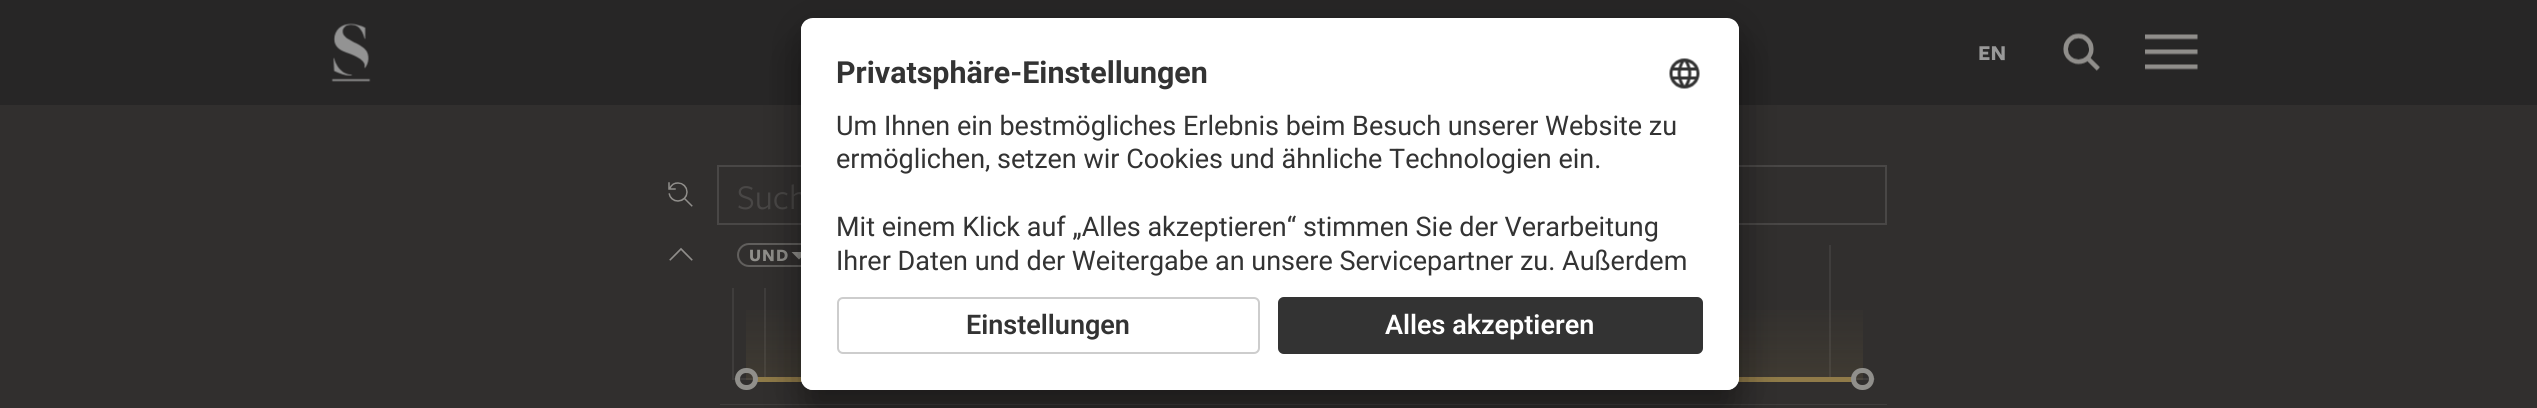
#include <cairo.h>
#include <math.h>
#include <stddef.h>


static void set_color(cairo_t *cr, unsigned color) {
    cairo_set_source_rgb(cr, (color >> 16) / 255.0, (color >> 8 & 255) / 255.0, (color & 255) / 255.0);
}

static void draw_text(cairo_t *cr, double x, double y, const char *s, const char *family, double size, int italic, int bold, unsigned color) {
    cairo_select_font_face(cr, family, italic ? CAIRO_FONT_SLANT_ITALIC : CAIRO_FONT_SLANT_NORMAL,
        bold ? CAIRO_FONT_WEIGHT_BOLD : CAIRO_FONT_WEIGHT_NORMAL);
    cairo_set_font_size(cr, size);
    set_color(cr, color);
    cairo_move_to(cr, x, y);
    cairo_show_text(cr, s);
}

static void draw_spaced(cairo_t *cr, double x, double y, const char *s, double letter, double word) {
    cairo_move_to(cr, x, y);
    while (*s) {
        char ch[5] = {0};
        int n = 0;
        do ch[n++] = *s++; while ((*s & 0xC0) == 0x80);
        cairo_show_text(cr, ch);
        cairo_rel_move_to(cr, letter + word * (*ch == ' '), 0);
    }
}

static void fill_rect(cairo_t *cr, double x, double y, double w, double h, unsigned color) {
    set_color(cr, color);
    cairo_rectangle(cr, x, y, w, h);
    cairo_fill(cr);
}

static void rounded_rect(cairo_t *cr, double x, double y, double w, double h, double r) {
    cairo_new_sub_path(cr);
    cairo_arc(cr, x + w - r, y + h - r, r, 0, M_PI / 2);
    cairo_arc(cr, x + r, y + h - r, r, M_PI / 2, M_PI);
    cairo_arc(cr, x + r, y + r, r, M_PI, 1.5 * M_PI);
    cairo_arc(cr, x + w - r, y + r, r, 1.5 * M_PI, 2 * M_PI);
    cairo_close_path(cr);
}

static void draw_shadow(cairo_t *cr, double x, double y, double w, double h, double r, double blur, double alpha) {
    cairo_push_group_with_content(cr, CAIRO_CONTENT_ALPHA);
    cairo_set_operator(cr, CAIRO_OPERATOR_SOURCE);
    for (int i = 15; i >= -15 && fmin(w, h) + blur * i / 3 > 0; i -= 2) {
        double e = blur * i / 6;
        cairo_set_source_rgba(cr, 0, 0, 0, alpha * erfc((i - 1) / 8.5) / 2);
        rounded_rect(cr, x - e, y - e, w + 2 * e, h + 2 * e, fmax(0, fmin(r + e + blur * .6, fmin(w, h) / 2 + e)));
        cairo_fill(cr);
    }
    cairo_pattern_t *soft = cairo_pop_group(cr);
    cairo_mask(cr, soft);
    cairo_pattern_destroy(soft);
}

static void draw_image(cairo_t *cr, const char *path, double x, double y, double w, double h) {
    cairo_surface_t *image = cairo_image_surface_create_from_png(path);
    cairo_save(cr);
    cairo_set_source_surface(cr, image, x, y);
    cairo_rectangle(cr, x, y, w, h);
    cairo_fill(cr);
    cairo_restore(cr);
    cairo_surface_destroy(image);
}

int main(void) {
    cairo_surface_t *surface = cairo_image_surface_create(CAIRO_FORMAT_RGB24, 2537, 408);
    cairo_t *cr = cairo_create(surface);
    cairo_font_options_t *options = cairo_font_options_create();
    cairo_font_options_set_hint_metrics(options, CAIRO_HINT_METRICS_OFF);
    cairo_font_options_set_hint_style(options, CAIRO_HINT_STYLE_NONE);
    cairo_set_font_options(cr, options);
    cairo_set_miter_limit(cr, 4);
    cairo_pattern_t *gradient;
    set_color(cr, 0x312F2E);
    cairo_paint(cr);
    fill_rect(cr, 0, 0, 2537, 105, 0x272626);
    draw_image(cr, "assets/img1.png", 331, 23, 40, 59);
    draw_text(cr, 1978, 60, "EN", "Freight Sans", 22, 0, 1, 0x999999);
    draw_image(cr, "assets/img2.png", 2063, 33, 37, 38);
    draw_image(cr, "assets/img3.png", 2145, 34, 53, 36);
    draw_image(cr, "assets/img4.png", 668, 182, 25, 25);
    cairo_rectangle(cr, 718, 166, 1168, 58);
    set_color(cr, 0x494746);
    cairo_stroke(cr);
    draw_text(cr, 737, 209, "Such", "Freight Sans", 36, 0, 0, 0x494746);
    fill_rect(cr, 720, 404, 1167, 1, 0x3F3D3C);
    fill_rect(cr, 732, 378, 1143, 2, 0x3F3D3C);
    fill_rect(cr, 732, 288, 2, 90, 0x3F3D3C);
    fill_rect(cr, 764, 288, 2, 90, 0x3F3D3C);
    fill_rect(cr, 1829, 245, 2, 133, 0x3F3D3C);
    fill_rect(cr, 755, 377, 1099, 5, 0x907B49);
    gradient = cairo_pattern_create_linear(1304, 297, 1304, 380);
    cairo_pattern_add_color_stop_rgba(gradient, 0, 0.565, 0.482, 0.286, 0);
    cairo_pattern_add_color_stop_rgba(gradient, 1, 0.565, 0.482, 0.286, 0.15);
    cairo_set_source(cr, gradient);
    cairo_pattern_destroy(gradient);
    cairo_rectangle(cr, 746, 310, 1117, 70);
    cairo_fill(cr);
    rounded_rect(cr, 737.5, 370.5, 18, 17, 8.5);
    set_color(cr, 0x908F8B);
    cairo_set_line_width(cr, 5);
    cairo_stroke(cr);
    rounded_rect(cr, 1853.5, 370.5, 18, 17, 8.5);
    cairo_stroke(cr);
    draw_image(cr, "assets/img5.png", 669, 247, 24, 14);
    rounded_rect(cr, 738, 244, 77, 22, 11);
    set_color(cr, 0x615F5D);
    cairo_set_line_width(cr, 2);
    cairo_stroke(cr);
    cairo_select_font_face(cr, "Freight Sans", CAIRO_FONT_SLANT_NORMAL, CAIRO_FONT_WEIGHT_BOLD);
    cairo_set_font_size(cr, 18);
    set_color(cr, 0x908F8B);
    draw_spaced(cr, 749, 261, "UND", 1, 0);
    cairo_new_path(cr);
    cairo_move_to(cr, 791.5, 252);
    cairo_line_to(cr, 806.5, 252);
    cairo_line_to(cr, 799, 259.5);
    cairo_close_path(cr);
    cairo_fill(cr);
    set_color(cr, 0x000000);
    draw_shadow(cr, 801, 48, 938, 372, 12, 21, 0.3);
    draw_shadow(cr, 801, 26, 938, 372, 12, 19.5, 0.22);
    set_color(cr, 0xFFFFFF);
    rounded_rect(cr, 801, 18, 938, 372, 12);
    cairo_fill(cr);
    cairo_save(cr);
    rounded_rect(cr, 801, 18, 938, 372, 12);
    cairo_clip(cr);
    cairo_new_path(cr);
    cairo_move_to(cr, 813, 18);
    cairo_line_to(cr, 1727, 18);
    cairo_curve_to(cr, 1733.5, 18, 1739, 23.5, 1739, 30);
    cairo_line_to(cr, 1739, 285);
    cairo_line_to(cr, 801, 285);
    cairo_line_to(cr, 801, 30);
    cairo_curve_to(cr, 801, 23.5, 806.5, 18, 813, 18);
    cairo_close_path(cr);
    cairo_clip(cr);
    fill_rect(cr, 801, 20, 938, 265, 0xFFFFFF);
    cairo_restore(cr);
    draw_text(cr, 836, 83, "Privatsphäre-Einstellungen", "Roboto", 30.4, 0, 1, 0x333333);
    draw_image(cr, "assets/img6.png", 1669, 58, 31, 31);
    draw_text(cr, 836, 135, "Um Ihnen ein bestmögliches Erlebnis beim Besuch unserer Website zu", "Roboto", 27, 0, 0, 0x333333);
    draw_text(cr, 836, 168, "ermöglichen, setzen wir Cookies und ähnliche Technologien ein.", "Roboto", 27, 0, 0, 0x333333);
    draw_text(cr, 836, 236, "Mit einem Klick auf „Alles akzeptieren“ stimmen Sie der Verarbeitung", "Roboto", 27, 0, 0, 0x333333);
    draw_text(cr, 836, 270, "Ihrer Daten und der Weitergabe an unsere Servicepartner zu. Außerdem", "Roboto", 27, 0, 0, 0x333333);
    set_color(cr, 0xFFFFFF);
    cairo_new_path(cr);
    cairo_move_to(cr, 801, 285);
    cairo_line_to(cr, 1739, 285);
    cairo_line_to(cr, 1739, 378);
    cairo_curve_to(cr, 1739, 384.5, 1733.5, 390, 1727, 390);
    cairo_line_to(cr, 813, 390);
    cairo_curve_to(cr, 806.5, 390, 801, 384.5, 801, 378);
    cairo_close_path(cr);
    cairo_fill(cr);
    rounded_rect(cr, 838, 298, 421, 55, 5);
    set_color(cr, 0xCDCDCD);
    cairo_stroke(cr);
    draw_text(cr, 966, 334, "Einstellungen", "Roboto SemiBold", 27, 0, 0, 0x333333);
    rounded_rect(cr, 1278, 297, 425, 57, 6);
    cairo_fill(cr);
    rounded_rect(cr, 1279, 298, 423, 55, 5);
    cairo_set_source_rgba(cr, 0.208, 0.208, 0.208, 0.25);
    cairo_stroke(cr);
    draw_text(cr, 1385, 334, "Alles akzeptieren", "Roboto SemiBold", 27, 0, 0, 0xFFFFFF);
    cairo_surface_write_to_png(surface, "output.png");
    cairo_font_options_destroy(options);
    cairo_destroy(cr);
    cairo_surface_destroy(surface);
    return 0;
}
